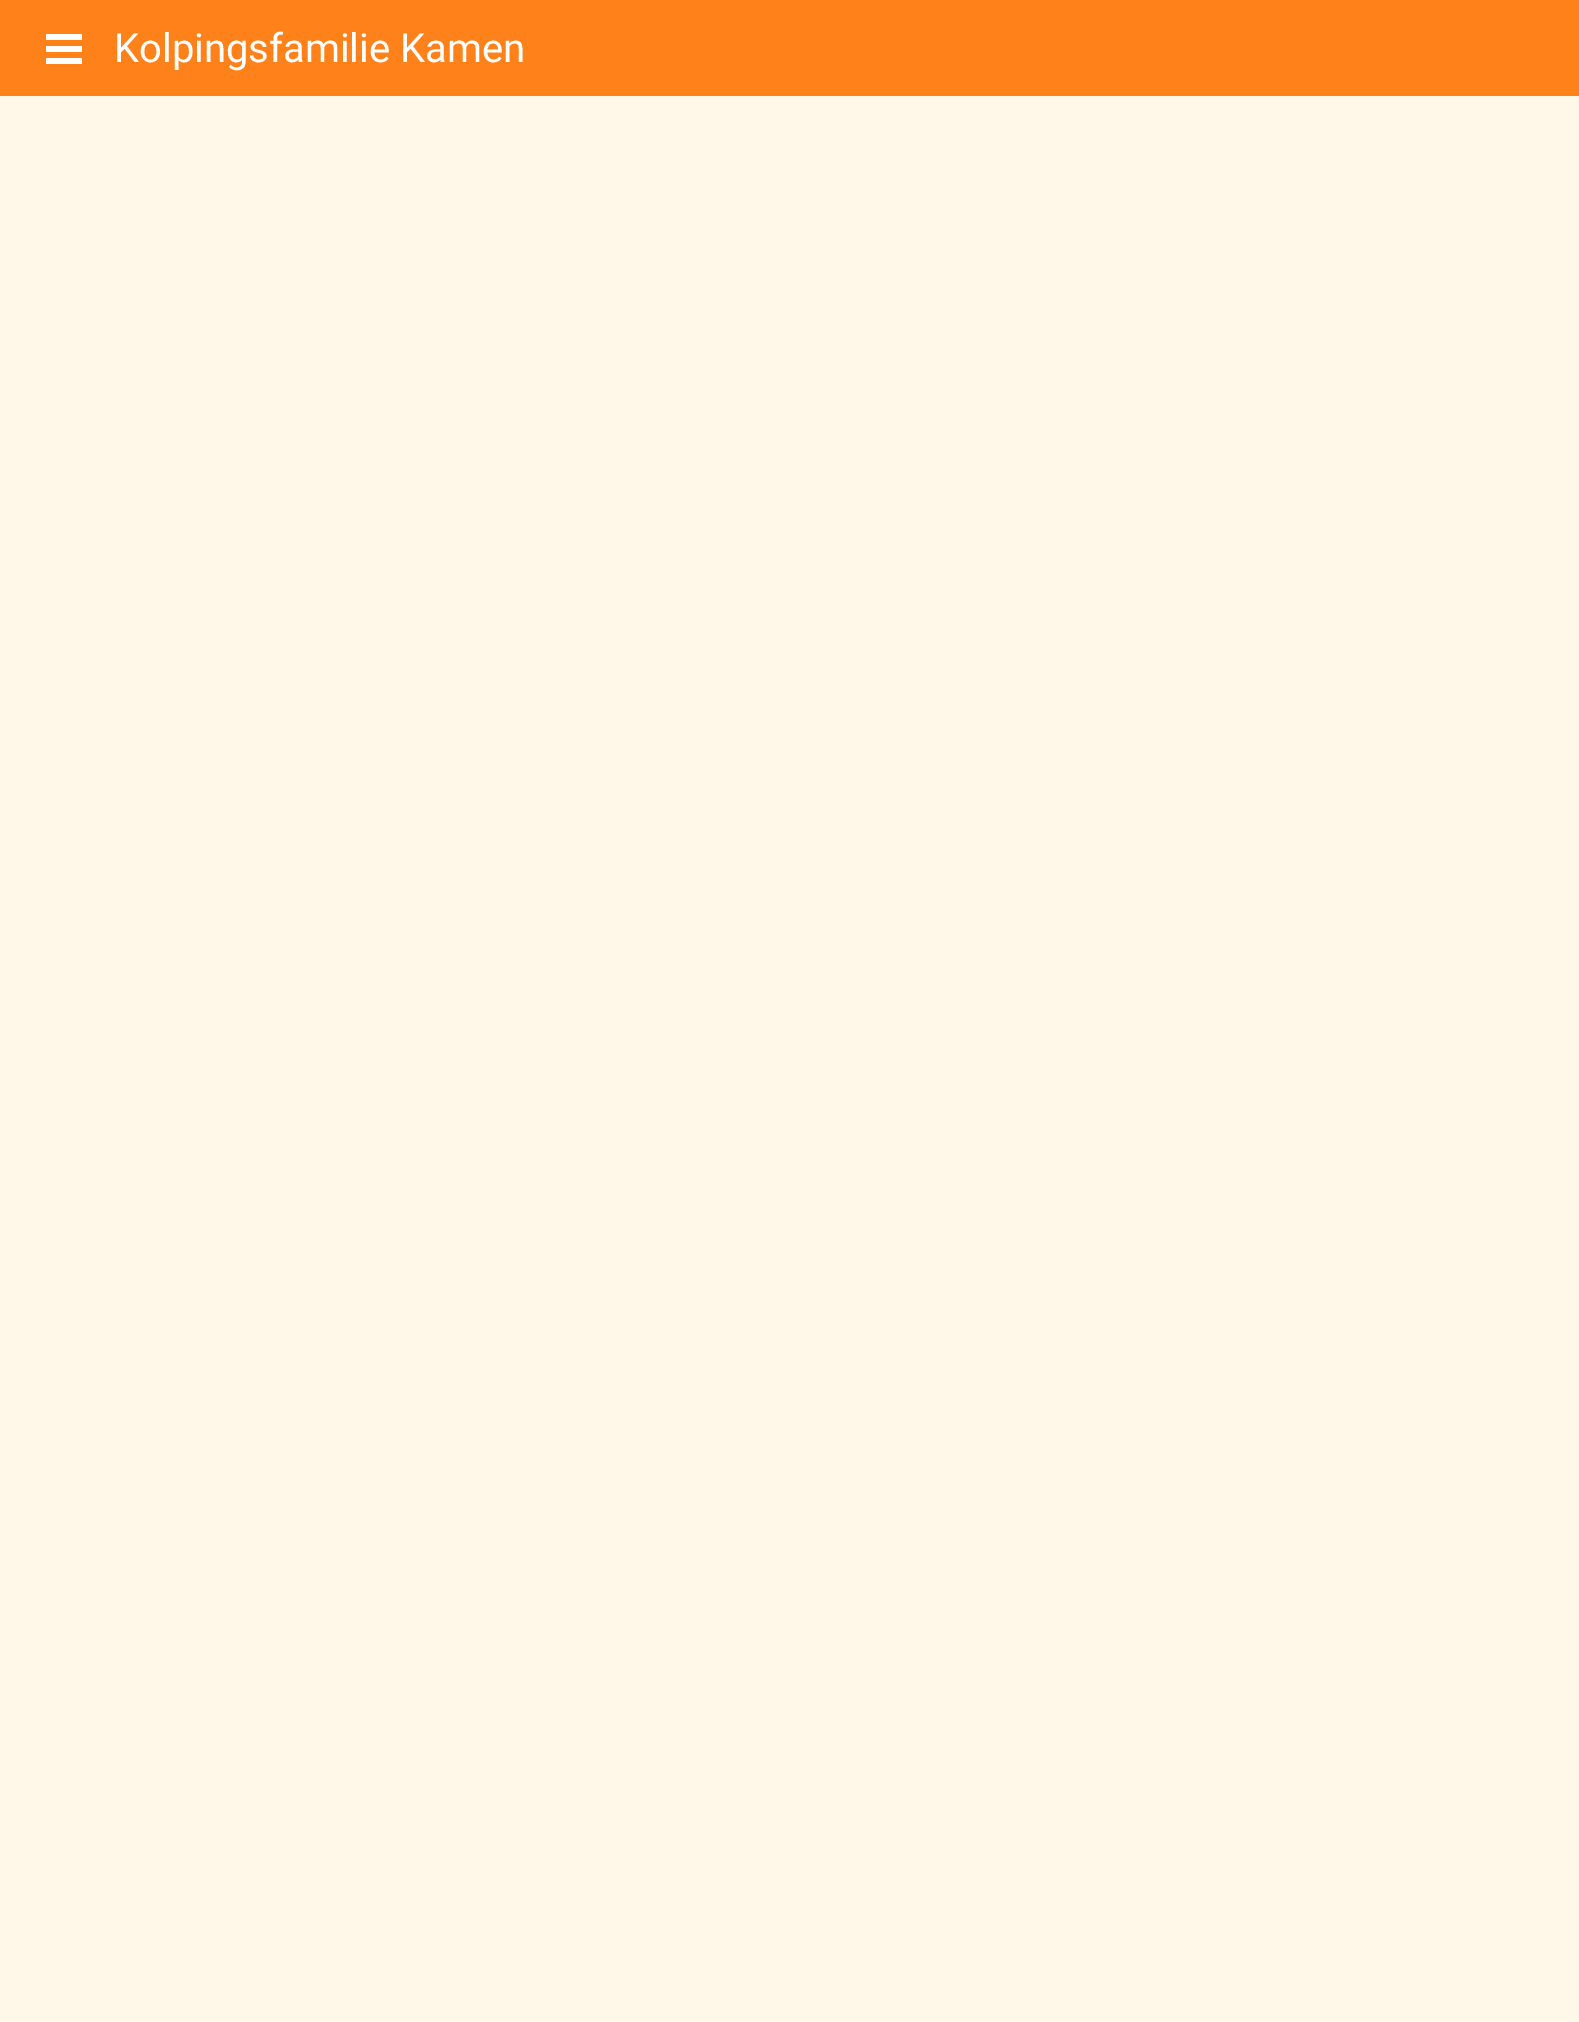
%!PS-Adobe-3.0
%%BoundingBox: 0 0 1579 2022
%%LanguageLevel: 3
%%Pages: 1
%%EndComments
%%BeginProlog
%%EndProlog
%%BeginSetup
<< /PageSize [1579 2022] >> setpagedevice
%%EndSetup
%%Page: 1 1
0 2022 translate 1 -1 scale
4 setmiterlimit
1 0.973 0.914 setrgbcolor
0 0 1579 2022 rectfill
1 0.506 0.102 setrgbcolor
0 0 1579 96 rectfill
1 setgray
46 34 36 6 rectfill
46 46 36 6 rectfill
46 58 36 6 rectfill
/Roboto-Regular [40 0 0 -40 0 0] selectfont
114 62 moveto (Kolpingsfamilie Kamen) show
showpage
%%EOF
